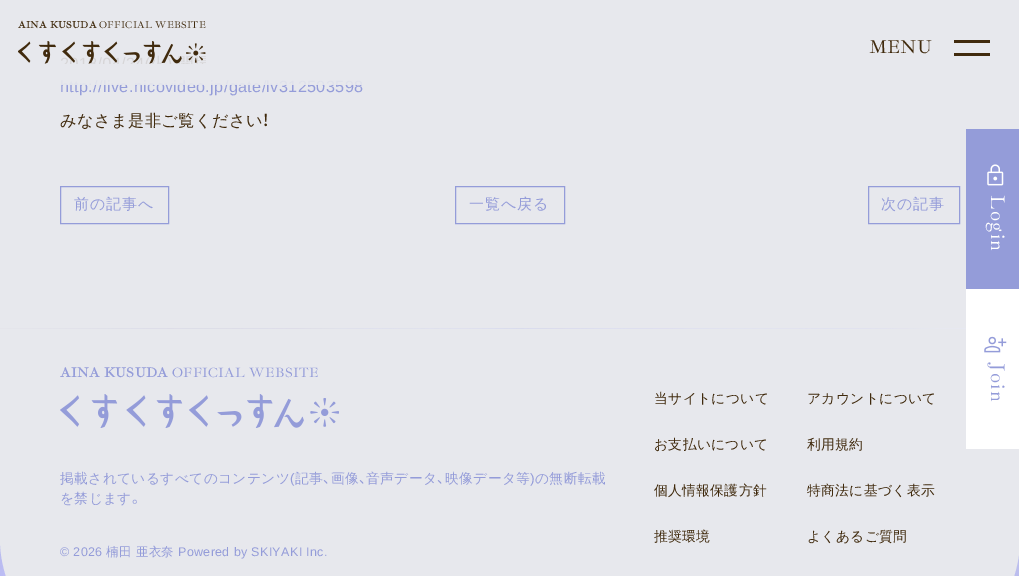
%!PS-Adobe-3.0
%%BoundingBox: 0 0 1019 576
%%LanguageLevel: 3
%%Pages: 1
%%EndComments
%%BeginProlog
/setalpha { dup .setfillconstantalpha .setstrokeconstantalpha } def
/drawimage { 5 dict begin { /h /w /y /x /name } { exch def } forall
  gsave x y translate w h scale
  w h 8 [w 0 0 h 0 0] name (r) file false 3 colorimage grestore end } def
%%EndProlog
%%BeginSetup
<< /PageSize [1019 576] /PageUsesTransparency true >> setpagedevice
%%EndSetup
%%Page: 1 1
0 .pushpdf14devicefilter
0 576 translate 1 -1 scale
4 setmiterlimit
0.906 0.91 0.929 setrgbcolor
0 0 1019 576 rectfill
(images/1.raw) 18 41 188 23 drawimage
0.251 0.165 0.051 setrgbcolor
954 40 36 3 rectfill
954 53 36 3 rectfill
0.58 0.612 0.851 setrgbcolor
966 129 53 160 rectfill
(images/2.raw) 987 164 17 22 drawimage
(images/4.raw) 0 328 1019 248 drawimage
0.906 0.91 0.929 setrgbcolor
newpath 0 329 moveto 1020 329 lineto 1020 538 lineto 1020 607 964 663 895 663 curveto 125 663 lineto 56 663 0 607 0 538 curveto closepath fill
1 setgray
966 289 53 160 rectfill
(images/3.raw) 984 336 23 17 drawimage
0.58 0.612 0.851 setrgbcolor
60.5 186.5 108 37 rectstroke
455.5 186.5 109 37 rectstroke
868.5 186.5 91 37 rectstroke
(images/5.raw) 60 394 279 34 drawimage
/IbarraRealNova-Bold [10 0 0 -10 0 0] selectfont
0.251 0.165 0.051 setrgbcolor
18 28 moveto 0.25 0 (AINA KUSUDA) ashow
/IbarraRealNova-Regular [10 0 0 -10 0 0] selectfont
99 28 moveto 0.25 0 (OFFICIAL WEBSITE) ashow
/IbarraRealNova-Regular [19 0 0 -19 0 0] selectfont
869 53 moveto (MENU) show
/IbarraRealNova-Regular [20 0 0 -20 0 0] selectfont
1 setgray
gsave 991 195 translate 90 rotate 0 0 moveto 1.5 0 (Login) ashow grestore
0.58 0.612 0.851 setrgbcolor
gsave 991 363 translate 90 rotate 0 0 moveto 1.5 0 (Join) ashow grestore
/LiberationSans-Regular [16.25 0 0 -16.25 0 0] selectfont
60 92 moveto 0.35 0 (http://live.nicovideo.jp/gate/lv312503598) ashow
0.9 setalpha
0.906 0.91 0.929 setrgbcolor
61 80 301 5 rectfill
/WenQuanYiZenHei-Medium [16.25 0 0 -16.25 0 0] selectfont
1 setalpha
0.251 0.165 0.051 setrgbcolor
60 126 moveto 0.35 0 (みなさま是非ご覧ください) ashow
/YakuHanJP-Regular [16.25 0 0 -16.25 0 0] selectfont
262 126 moveto 0.35 0 (！) ashow
/WenQuanYiZenHei-Medium [15 0 0 -15 0 0] selectfont
0.58 0.612 0.851 setrgbcolor
74 209 moveto 1 0 (前の記事へ) ashow
469 209 moveto 1 0 (一覧へ戻る) ashow
881 209 moveto 1 0 (次の記事) ashow
/IbarraRealNova-Bold [13.75 0 0 -13.75 0 0] selectfont
60 377 moveto 0.35 0 (AINA KUSUDA) ashow
/IbarraRealNova-Regular [13.75 0 0 -13.75 0 0] selectfont
172 377 moveto 0.35 0 (OFFICIAL WEBSITE) ashow
/WenQuanYiZenHei-Medium [13.75 0 0 -13.75 0 0] selectfont
60 483 moveto 0.35 0 (掲載されているすべてのコンテンツ) ashow
/LiberationSans-Regular [13.75 0 0 -13.75 0 0] selectfont
290 483 moveto 0.35 0 (\() ashow
/WenQuanYiZenHei-Medium [13.75 0 0 -13.75 0 0] selectfont
295 483 moveto 0.35 0 (記事) ashow
/YakuHanJP-Regular [13.75 0 0 -13.75 0 0] selectfont
323 483 moveto 0.35 0 (、) ashow
/WenQuanYiZenHei-Medium [13.75 0 0 -13.75 0 0] selectfont
331 483 moveto 0.35 0 (画像) ashow
/YakuHanJP-Regular [13.75 0 0 -13.75 0 0] selectfont
359 483 moveto 0.35 0 (、) ashow
/WenQuanYiZenHei-Medium [13.75 0 0 -13.75 0 0] selectfont
366 483 moveto 0.35 0 (音声データ) ashow
/YakuHanJP-Regular [13.75 0 0 -13.75 0 0] selectfont
437 483 moveto 0.35 0 (、) ashow
/WenQuanYiZenHei-Medium [13.75 0 0 -13.75 0 0] selectfont
445 483 moveto 0.35 0 (映像データ等) ashow
/LiberationSans-Regular [13.75 0 0 -13.75 0 0] selectfont
530 483 moveto 0.35 0 (\)) ashow
/WenQuanYiZenHei-Medium [13.75 0 0 -13.75 0 0] selectfont
535 483 moveto 0.35 0 (の無断転載) ashow
60 503 moveto 0.35 0 (を禁じます) ashow
/YakuHanJP-Regular [13.75 0 0 -13.75 0 0] selectfont
132 503 moveto 0.35 0 (。) ashow
/LiberationSans-Regular [12.5 0 0 -12.5 0 0] selectfont
60 556 moveto 0.35 0 (© 2026) ashow
/WenQuanYiZenHei-Medium [12.5 0 0 -12.5 0 0] selectfont
106 556 moveto 0.35 0 (楠田 亜衣奈) ashow
/LiberationSans-Regular [12.5 0 0 -12.5 0 0] selectfont
178 556 moveto 0.35 0 (Powered by SKIYAKI Inc.) ashow
/WenQuanYiZenHei-Medium [13.75 0 0 -13.75 0 0] selectfont
0.251 0.165 0.051 setrgbcolor
654 403 moveto 0.35 0 (当サイトについて) ashow
807 403 moveto 0.35 0 (アカウントについて) ashow
654 449 moveto 0.35 0 (お支払いについて) ashow
807 449 moveto 0.35 0 (利用規約) ashow
654 495 moveto 0.35 0 (個人情報保護方針) ashow
807 495 moveto 0.35 0 (特商法に基づく表示) ashow
654 541 moveto 0.35 0 (推奨環境) ashow
807 541 moveto 0.35 0 (よくあるご質問) ashow
.poppdf14devicefilter showpage
%%EOF
